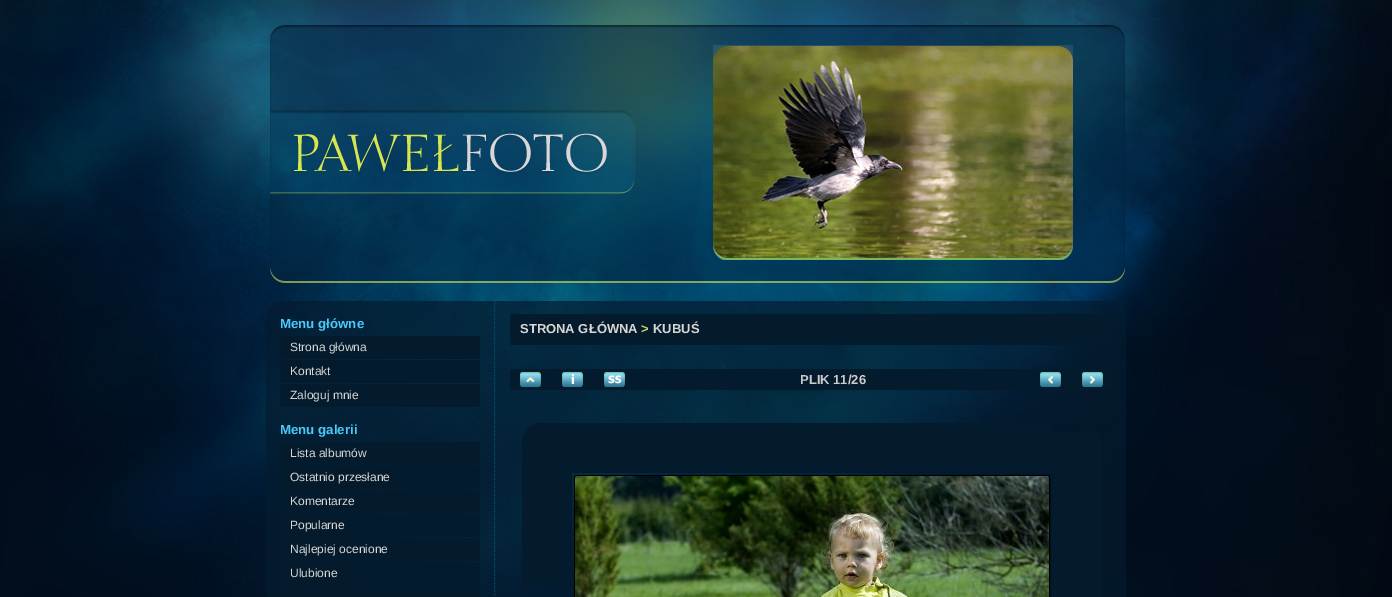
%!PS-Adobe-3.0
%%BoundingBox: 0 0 1392 597
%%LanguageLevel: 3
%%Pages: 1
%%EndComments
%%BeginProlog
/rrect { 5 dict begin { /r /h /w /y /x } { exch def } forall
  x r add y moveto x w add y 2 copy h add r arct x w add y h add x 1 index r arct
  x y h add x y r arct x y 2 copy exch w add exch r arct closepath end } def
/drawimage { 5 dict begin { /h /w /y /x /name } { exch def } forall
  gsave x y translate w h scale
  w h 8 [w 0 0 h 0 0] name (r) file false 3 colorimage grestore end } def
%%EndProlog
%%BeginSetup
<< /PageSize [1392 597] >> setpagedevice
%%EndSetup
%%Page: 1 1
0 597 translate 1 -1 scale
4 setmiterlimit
1 setgray
0 0 1392 597 rectfill
(images/1.raw) 0 0 1392 597 drawimage
(images/2.raw) 270 25 855 258 drawimage
(images/3.raw) 294 133 313 41 drawimage
(images/4.raw) 713 45 360 215 drawimage
(images/5.raw) 266 301 860 296 drawimage
0.012 0.31 0.443 setrgbcolor
[1 1] 0 setdash
newpath 494.5 301 moveto 494.5 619 lineto stroke
0.016 0.106 0.18 setrgbcolor
280 336 200 23 2 rrect fill
280 360 200 23 2 rrect fill
280 384 200 23 2 rrect fill
280 442 200 23 2 rrect fill
280 466 200 23 2 rrect fill
280 490 200 23 2 rrect fill
280 514 200 23 2 rrect fill
280 538 200 23 2 rrect fill
280 562 200 23 2 rrect fill
280 586 200 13 2 rrect fill
510 314 603 31 2 rrect fill
510 369 603 21 2 rrect fill
(images/6.raw) 520 372 21 15 drawimage
(images/7.raw) 562 372 21 15 drawimage
(images/8.raw) 604 372 21 15 drawimage
(images/9.raw) 1040 372 21 15 drawimage
(images/10.raw) 1082 372 21 15 drawimage
(images/11.raw) 522 423 50 50 drawimage
572 423 480 50 rectfill
(images/12.raw) 1052 432 50 41 drawimage
522 473 50 114 rectfill
0 setgray
[] 0 setdash
574.5 475.5 475 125 2.5 rrect stroke
(images/13.raw) 575 476 474 121 drawimage
0.016 0.106 0.18 setrgbcolor
1052 473 50 124 rectfill
/LiberationSans-Bold [13.25 0 0 -13.25 0 0] selectfont
0.282 0.796 0.976 setrgbcolor
280 328 moveto (Menu główne) show
/LiberationSans-Regular [12 0 0 -12 0 0] selectfont
0.847 0.843 0.827 setrgbcolor
290 351 moveto (Strona główna) show
290 375 moveto (Kontakt) show
290 399 moveto (Zaloguj mnie) show
/LiberationSans-Bold [13.25 0 0 -13.25 0 0] selectfont
0.282 0.796 0.976 setrgbcolor
280 434 moveto (Menu galerii) show
/LiberationSans-Regular [12 0 0 -12 0 0] selectfont
0.847 0.843 0.827 setrgbcolor
290 457 moveto (Lista albumów) show
290 481 moveto (Ostatnio przesłane) show
290 505 moveto (Komentarze) show
290 529 moveto (Popularne) show
290 553 moveto (Najlepiej ocenione) show
290 577 moveto (Ulubione) show
/LiberationSans-Bold [13 0 0 -13 0 0] selectfont
520 333 moveto (STRONA GŁÓWNA) show
0.808 0.867 0.369 setrgbcolor
641 333 moveto (>) show
0.847 0.843 0.827 setrgbcolor
653 333 moveto (KUBUŚ) show
0.8 setgray
800 384 moveto (PLIK 11/26) show
showpage
%%EOF
